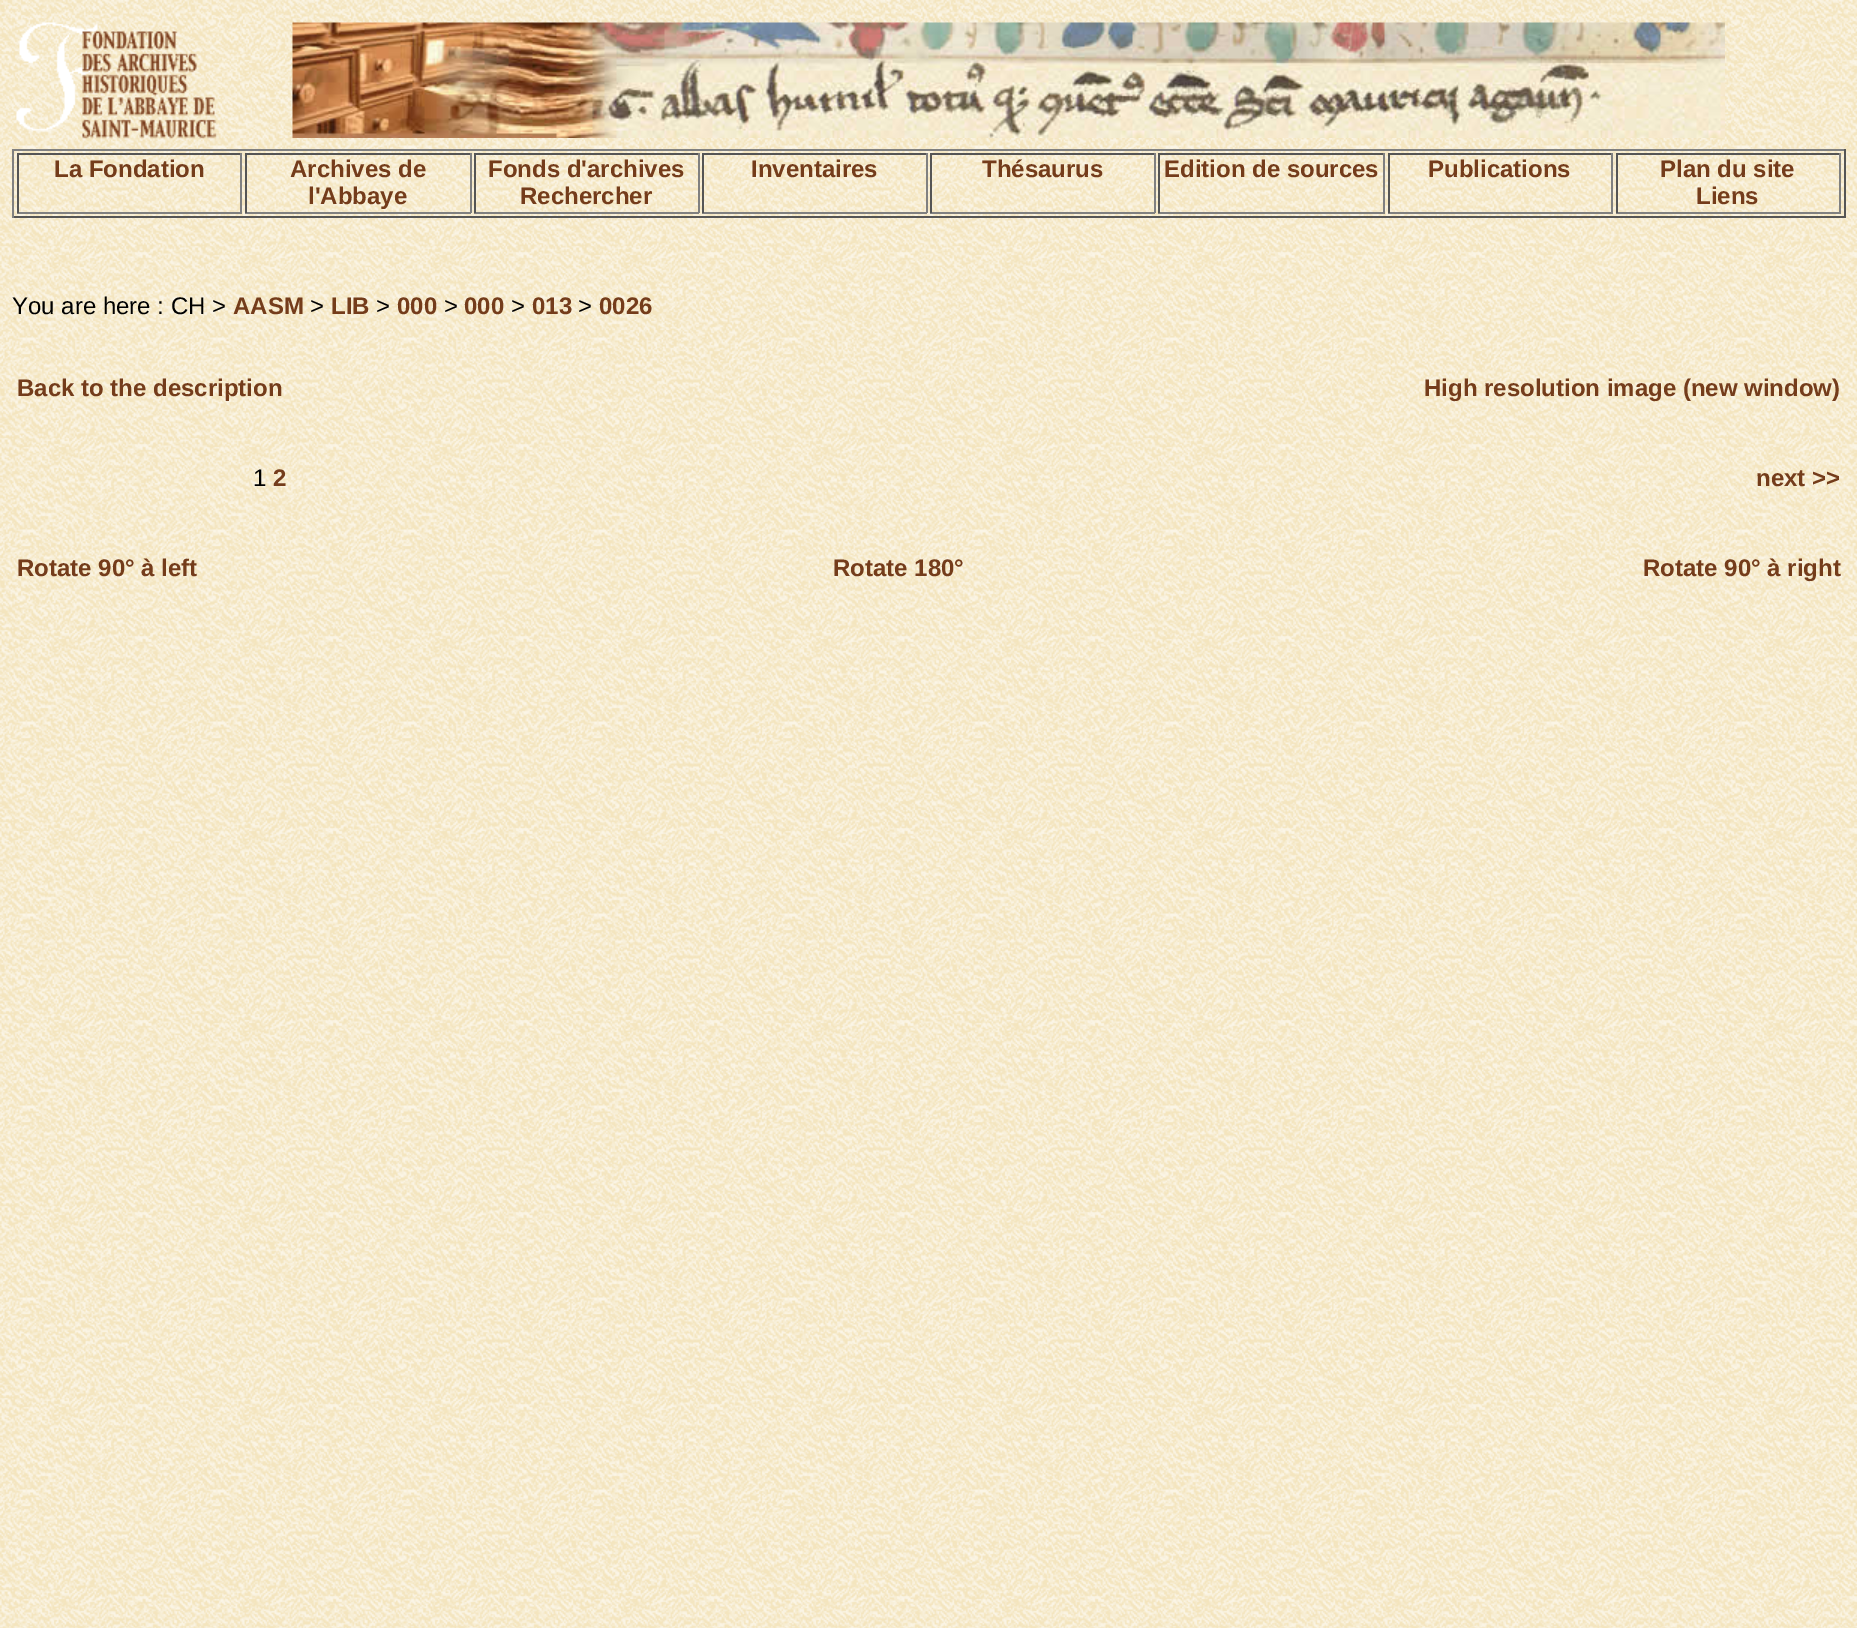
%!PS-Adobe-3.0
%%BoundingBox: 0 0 1857 1628
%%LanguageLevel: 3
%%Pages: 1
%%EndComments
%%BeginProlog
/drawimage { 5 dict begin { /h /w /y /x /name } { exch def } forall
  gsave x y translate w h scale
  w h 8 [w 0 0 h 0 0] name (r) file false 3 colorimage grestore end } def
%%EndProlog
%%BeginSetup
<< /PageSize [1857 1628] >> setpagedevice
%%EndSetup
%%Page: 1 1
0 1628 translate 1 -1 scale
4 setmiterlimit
1 setgray
0 0 1857 1628 rectfill
(images/1.raw) 0 0 1857 1628 drawimage
(images/2.raw) 16 22 201 117 drawimage
(images/3.raw) 292 22 1433 116 drawimage
0.502 setgray
12 149 1833 2 rectfill
0.333 setgray
1844 149 2 69 rectfill
12 216 1833 2 rectfill
0.502 setgray
12 149 2 69 rectfill
0.333 setgray
17 153 225 2 rectfill
0.502 setgray
240 153 2 60 rectfill
17 212 225 2 rectfill
0.333 setgray
17 153 2 60 rectfill
245 153 226 2 rectfill
0.502 setgray
470 153 2 60 rectfill
245 212 226 2 rectfill
0.333 setgray
245 153 2 60 rectfill
474 153 225 2 rectfill
0.502 setgray
698 153 2 60 rectfill
474 212 225 2 rectfill
0.333 setgray
474 153 2 60 rectfill
702 153 225 2 rectfill
0.502 setgray
926 153 2 60 rectfill
702 212 225 2 rectfill
0.333 setgray
702 153 2 60 rectfill
930 153 225 2 rectfill
0.502 setgray
1154 153 2 60 rectfill
930 212 225 2 rectfill
0.333 setgray
930 153 2 60 rectfill
1158 153 227 2 rectfill
0.502 setgray
1383 153 2 60 rectfill
1158 212 227 2 rectfill
0.333 setgray
1158 153 2 60 rectfill
1388 153 225 2 rectfill
0.502 setgray
1611 153 2 60 rectfill
1388 212 225 2 rectfill
0.333 setgray
1388 153 2 60 rectfill
1616 153 225 2 rectfill
0.502 setgray
1839 153 2 60 rectfill
1616 212 225 2 rectfill
0.333 setgray
1616 153 2 60 rectfill
/LiberationSans-Bold [24 0 0 -24 0 0] selectfont
0.455 0.235 0.106 setrgbcolor
54 177 moveto (La Fondation) show
290 177 moveto (Archives de) show
308 204 moveto (l'Abbaye) show
488 177 moveto (Fonds d'archives) show
520 204 moveto (Rechercher) show
751 177 moveto (Inventaires) show
982 177 moveto (Thésaurus) show
1164 177 moveto (Edition de sources) show
1428 177 moveto (Publications) show
1660 177 moveto (Plan du site) show
1696 204 moveto (Liens) show
/LiberationSans-Regular [24 0 0 -24 0 0] selectfont
0 setgray
12 314 moveto (You are here : CH >) show
/LiberationSans-Bold [24 0 0 -24 0 0] selectfont
0.455 0.235 0.106 setrgbcolor
233 314 moveto (AASM) show
/LiberationSans-Regular [24 0 0 -24 0 0] selectfont
0 setgray
310 314 moveto (>) show
/LiberationSans-Bold [24 0 0 -24 0 0] selectfont
0.455 0.235 0.106 setrgbcolor
331 314 moveto (LIB) show
/LiberationSans-Regular [24 0 0 -24 0 0] selectfont
0 setgray
376 314 moveto (>) show
/LiberationSans-Bold [24 0 0 -24 0 0] selectfont
0.455 0.235 0.106 setrgbcolor
397 314 moveto (000) show
/LiberationSans-Regular [24 0 0 -24 0 0] selectfont
0 setgray
444 314 moveto (>) show
/LiberationSans-Bold [24 0 0 -24 0 0] selectfont
0.455 0.235 0.106 setrgbcolor
464 314 moveto (000) show
/LiberationSans-Regular [24 0 0 -24 0 0] selectfont
0 setgray
511 314 moveto (>) show
/LiberationSans-Bold [24 0 0 -24 0 0] selectfont
0.455 0.235 0.106 setrgbcolor
532 314 moveto (013) show
/LiberationSans-Regular [24 0 0 -24 0 0] selectfont
0 setgray
578 314 moveto (>) show
/LiberationSans-Bold [24 0 0 -24 0 0] selectfont
0.455 0.235 0.106 setrgbcolor
599 314 moveto (0026) show
17 396 moveto (Back to the description) show
1424 396 moveto (High resolution image \(new window\)) show
/LiberationSans-Regular [24 0 0 -24 0 0] selectfont
0 setgray
253 486 moveto (1) show
/LiberationSans-Bold [24 0 0 -24 0 0] selectfont
0.455 0.235 0.106 setrgbcolor
273 486 moveto (2) show
1756 486 moveto (next >>) show
17 576 moveto (Rotate 90° à left) show
833 576 moveto (Rotate 180°) show
1643 576 moveto (Rotate 90° à right) show
showpage
%%EOF
